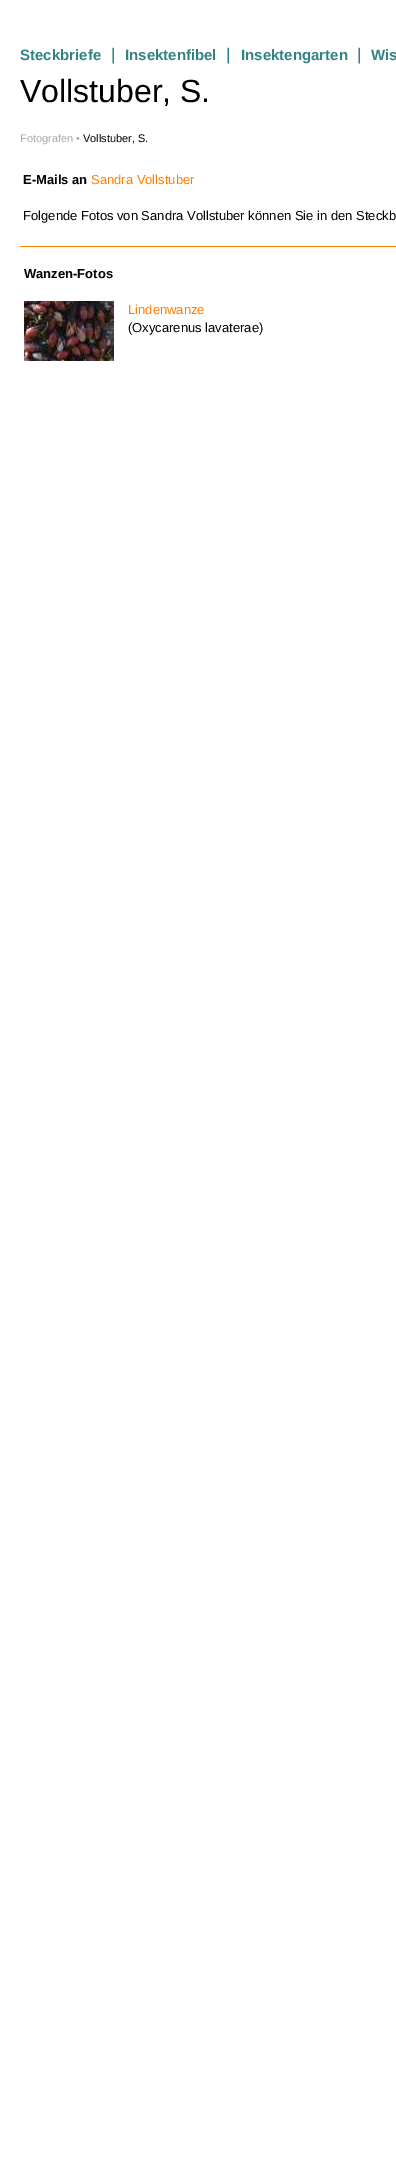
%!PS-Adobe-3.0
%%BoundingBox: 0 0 396 2179
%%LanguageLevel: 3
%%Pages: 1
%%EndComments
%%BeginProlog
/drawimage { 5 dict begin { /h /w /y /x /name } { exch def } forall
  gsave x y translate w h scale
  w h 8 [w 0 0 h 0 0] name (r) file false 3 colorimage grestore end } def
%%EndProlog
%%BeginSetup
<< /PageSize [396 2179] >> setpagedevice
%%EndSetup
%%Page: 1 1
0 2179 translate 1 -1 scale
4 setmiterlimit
1 setgray
0 0 396 2179 rectfill
1 0.498 0 setrgbcolor
20 246 376 1 rectfill
(images/1.raw) 24 301 90 60 drawimage
/LiberationSans-Bold [15 0 0 -15 0 0] selectfont
0.196 0.51 0.522 setrgbcolor
20 60 moveto (Steckbriefe) show
/LiberationSans-Regular [17 0 0 -17 0 0] selectfont
111 60 moveto (|) show
/LiberationSans-Bold [15 0 0 -15 0 0] selectfont
125 60 moveto (Insektenfibel) show
/LiberationSans-Regular [17 0 0 -17 0 0] selectfont
226 60 moveto (|) show
/LiberationSans-Bold [15 0 0 -15 0 0] selectfont
241 60 moveto (Insektengarten) show
/LiberationSans-Regular [17 0 0 -17 0 0] selectfont
357 60 moveto (|) show
/LiberationSans-Bold [15 0 0 -15 0 0] selectfont
371 60 moveto (Wis) show
/LiberationSans-Regular [32 0 0 -32 0 0] selectfont
0 setgray
20 102 moveto (Vollstuber, S.) show
/LiberationSans-Regular [11 0 0 -11 0 0] selectfont
0.667 setgray
20 142 moveto (Fotografen •) show
0 setgray
83 142 moveto (Vollstuber, S.) show
/LiberationSans-Bold [13 0 0 -13 0 0] selectfont
23 184 moveto (E-Mails an) show
/LiberationSans-Regular [13 0 0 -13 0 0] selectfont
1 0.498 0 setrgbcolor
91 184 moveto (Sandra Vollstuber) show
0 setgray
23 220 moveto (Folgende Fotos von Sandra Vollstuber können Sie in den Steckb) show
/LiberationSans-Bold [13 0 0 -13 0 0] selectfont
24 278 moveto (Wanzen-Fotos) show
/LiberationSans-Regular [13 0 0 -13 0 0] selectfont
1 0.498 0 setrgbcolor
128 314 moveto (Lindenwanze) show
0 setgray
128 332 moveto (\(Oxycarenus lavaterae\)) show
showpage
%%EOF
